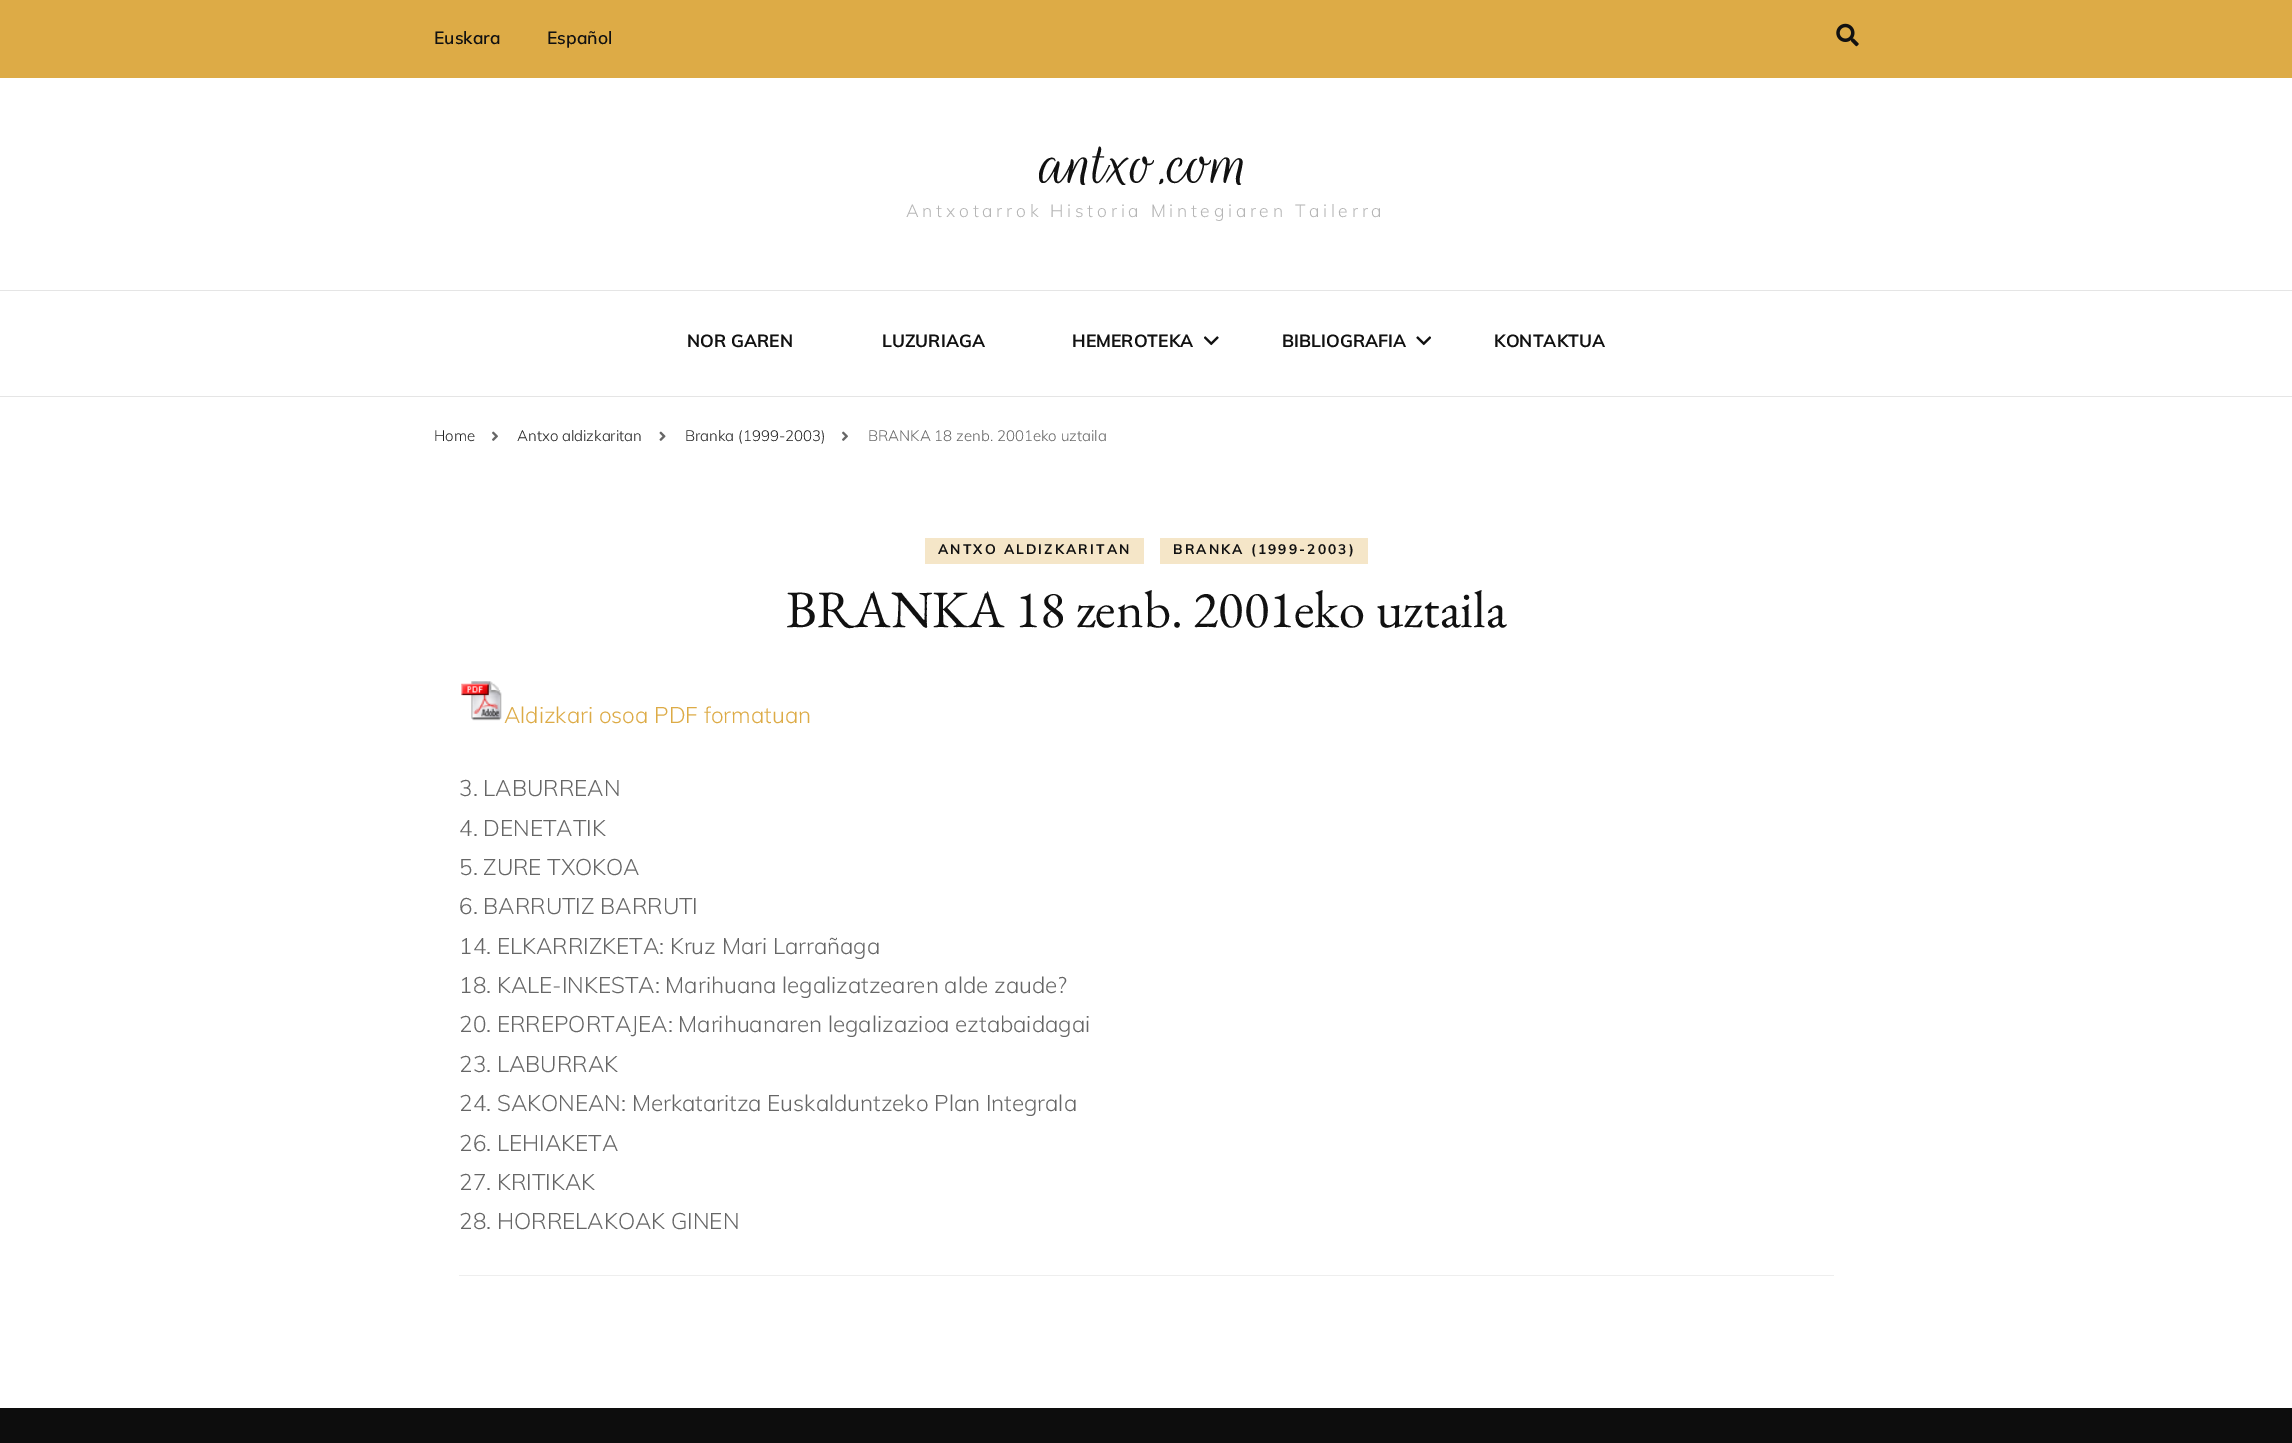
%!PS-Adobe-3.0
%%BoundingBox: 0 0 2292 1443
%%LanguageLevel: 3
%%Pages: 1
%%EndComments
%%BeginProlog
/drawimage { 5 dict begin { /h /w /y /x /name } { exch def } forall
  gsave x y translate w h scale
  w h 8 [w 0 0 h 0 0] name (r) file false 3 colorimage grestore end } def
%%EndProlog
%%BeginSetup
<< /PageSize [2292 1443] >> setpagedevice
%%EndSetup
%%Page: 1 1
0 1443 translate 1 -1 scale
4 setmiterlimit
1 setgray
0 0 2292 1443 rectfill
0.867 0.671 0.275 setrgbcolor
0 0 2292 78 rectfill
(images/1.raw) 1836 23 23 24 drawimage
0.898 setgray
0 290 2292 1 rectfill
0 396 2292 1 rectfill
(images/2.raw) 1204 336 15 10 drawimage
(images/3.raw) 1416 336 15 10 drawimage
(images/4.raw) 492 431 6 10 drawimage
(images/5.raw) 659 431 7 10 drawimage
(images/4.raw) 842 431 6 10 drawimage
0.961 0.902 0.784 setrgbcolor
925 538 219 26 rectfill
1160 538 208 26 rectfill
(images/6.raw) 461 681 41 40 drawimage
0.933 setgray
459 1275 1375 1 rectfill
0.051 setgray
0 1408 2292 35 rectfill
/Muli-SemiBold [17.5 0 0 -17.5 0 0] selectfont
0.067 setgray
434 44 moveto (Euskara) show
547 44 moveto (Español) show
/RougeScript-Regular [75 0 0 -75 0 0] selectfont
1042 183 moveto (antxo.com) show
/Muli-Light [17.5 0 0 -17.5 0 0] selectfont
0.71 setgray
906 217 moveto 3.75 0 (Antxotarrok Historia Mintegiaren Tailerra) ashow
/Muli-Bold [17.5 0 0 -17.5 0 0] selectfont
0.067 setgray
687 347 moveto (NOR GAREN) show
882 347 moveto (LUZURIAGA) show
1072 347 moveto (HEMEROTEKA) show
1282 347 moveto (BIBLIOGRAFIA) show
1494 347 moveto (KONTAKTUA) show
/Muli-Light [15 0 0 -15 0 0] selectfont
0.133 setgray
434 441 moveto (Home) show
517 441 moveto (Antxo aldizkaritan) show
685 441 moveto (Branka \(1999-2003\)) show
0.4 setgray
868 441 moveto (BRANKA 18 zenb. 2001eko uztaila) show
/Muli-Bold [13.75 0 0 -13.75 0 0] selectfont
0.067 setgray
938 554 moveto 2.1 0 (ANTXO ALDIZKARITAN) ashow
1173 554 moveto 2.1 0 (BRANKA \(1999-2003\)) ashow
/EBGaramond-Regular [52.5 0 0 -52.5 0 0] selectfont
786 627 moveto (BRANKA 18 zenb. 2001eko uztaila) show
/Muli-Light [22.5 0 0 -22.5 0 0] selectfont
0.867 0.671 0.275 setrgbcolor
504 723 moveto (Aldizkari osoa PDF formatuan) show
0.4 setgray
459 796 moveto (3. LABURREAN) show
459 836 moveto (4. DENETATIK) show
459 875 moveto (5. ZURE TXOKOA) show
459 914 moveto (6. BARRUTIZ BARRUTI) show
459 954 moveto (14. ELKARRIZKETA: Kruz Mari Larrañaga) show
459 993 moveto (18. KALE-INKESTA: Marihuana legalizatzearen alde zaude?) show
459 1032 moveto (20. ERREPORTAJEA: Marihuanaren legalizazioa eztabaidagai) show
459 1072 moveto (23. LABURRAK) show
459 1111 moveto (24. SAKONEAN: Merkataritza Euskalduntzeko Plan Integrala) show
459 1151 moveto (26. LEHIAKETA) show
459 1190 moveto (27. KRITIKAK) show
459 1229 moveto (28. HORRELAKOAK GINEN) show
showpage
%%EOF
